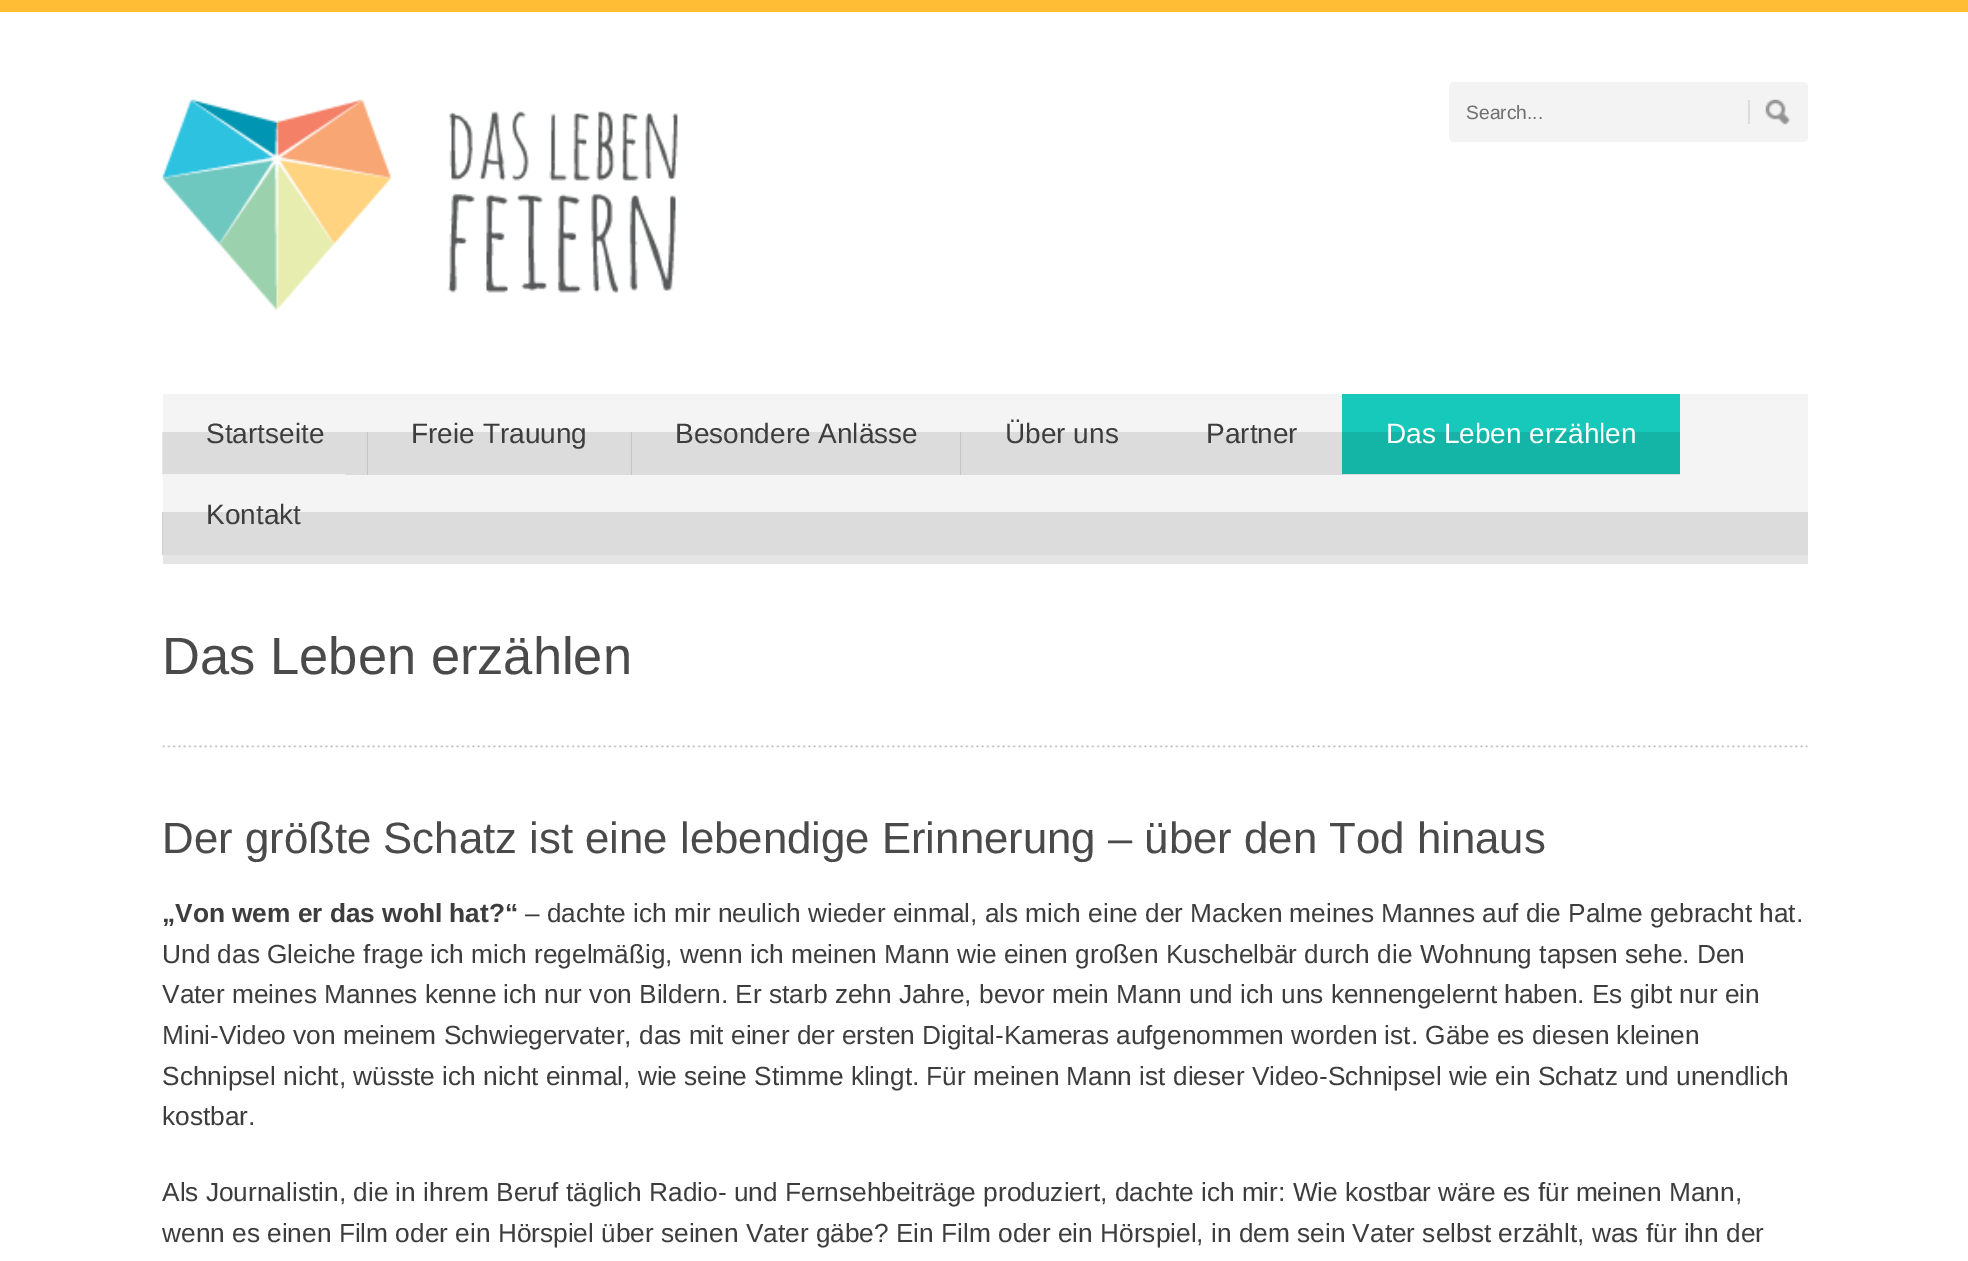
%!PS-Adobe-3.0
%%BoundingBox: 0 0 1968 1261
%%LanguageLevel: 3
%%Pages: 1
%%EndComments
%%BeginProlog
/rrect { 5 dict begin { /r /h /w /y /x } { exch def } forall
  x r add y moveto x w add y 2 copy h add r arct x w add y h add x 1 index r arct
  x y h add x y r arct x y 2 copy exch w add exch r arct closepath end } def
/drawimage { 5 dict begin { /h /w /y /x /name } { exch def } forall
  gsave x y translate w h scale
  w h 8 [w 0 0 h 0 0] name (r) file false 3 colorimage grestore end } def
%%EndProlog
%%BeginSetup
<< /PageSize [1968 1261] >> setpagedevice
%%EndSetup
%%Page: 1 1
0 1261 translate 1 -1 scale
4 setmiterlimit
1 setgray
0 0 1968 1261 rectfill
1 0.737 0.208 setrgbcolor
0 0 1968 12 rectfill
(images/1.raw) 162 99 516 211 drawimage
0.953 setgray
1449 82 359 60 5 rrect fill
(images/2.raw) 1765 99 26 26 drawimage
0.859 setgray
1748 100 2 24 rectfill
0.957 setgray
163 394 1645 118 rectfill
0.863 setgray
1343 474 337 1 rectfill
961 432 381 43 rectfill
632 432 328 43 rectfill
0.776 setgray
960 432 1 43 rectfill
0.863 setgray
368 432 263 43 rectfill
0.776 setgray
631 432 1 43 rectfill
0.863 setgray
163 432 204 43 rectfill
0.776 setgray
367 432 1 43 rectfill
0.863 setgray
163 512 1645 43 rectfill
0.776 setgray
1342 474 1 1 rectfill
0.086 0.788 0.729 setrgbcolor
1342 394 338 38 rectfill
0.078 0.71 0.655 setrgbcolor
1342 432 338 42 rectfill
0.957 setgray
163 474 182 1 rectfill
(images/3.raw) 162 745 1646 3 drawimage
0.898 setgray
163 555 1645 9 rectfill
0.902 setgray
162 432 1 43 rectfill
0.812 setgray
162 512 1 43 rectfill
/LiberationSans-Regular [19.25 0 0 -19.25 0 0] selectfont
0.439 setgray
1466 119 moveto (Search...) show
/LiberationSans-Regular [28 0 0 -28 0 0] selectfont
0.239 setgray
206 443 moveto (Startseite) show
411 443 moveto (Freie Trauung) show
675 443 moveto (Besondere Anlässe) show
1005 443 moveto (Über uns) show
1206 443 moveto (Partner) show
1 setgray
1386 443 moveto (Das Leben erzählen) show
0.239 setgray
206 524 moveto (Kontakt) show
/LiberationSans-Regular [52.5 0 0 -52.5 0 0] selectfont
0.29 setgray
162 674 moveto (Das Leben erzählen) show
/LiberationSans-Regular [43.75 0 0 -43.75 0 0] selectfont
162 853 moveto (Der größte Schatz ist eine lebendige Erinnerung – über den Tod hinaus) show
/LiberationSans-Bold [26.25 0 0 -26.25 0 0] selectfont
0.239 setgray
162 922 moveto („Von wem er das wohl hat?“) show
/LiberationSans-Regular [26.25 0 0 -26.25 0 0] selectfont
525 922 moveto (– dachte ich mir neulich wieder einmal, als mich eine der Macken meines Mannes auf die Palme gebracht hat.) show
162 963 moveto (Und das Gleiche frage ich mich regelmäßig, wenn ich meinen Mann wie einen großen Kuschelbär durch die Wohnung tapsen sehe. Den) show
162 1003 moveto (Vater meines Mannes kenne ich nur von Bildern. Er starb zehn Jahre, bevor mein Mann und ich uns kennengelernt haben. Es gibt nur ein) show
162 1044 moveto (Mini-Video von meinem Schwiegervater, das mit einer der ersten Digital-Kameras aufgenommen worden ist. Gäbe es diesen kleinen) show
162 1085 moveto (Schnipsel nicht, wüsste ich nicht einmal, wie seine Stimme klingt. Für meinen Mann ist dieser Video-Schnipsel wie ein Schatz und unendlich) show
162 1125 moveto (kostbar.) show
162 1201 moveto (Als Journalistin, die in ihrem Beruf täglich Radio- und Fernsehbeiträge produziert, dachte ich mir: Wie kostbar wäre es für meinen Mann,) show
162 1242 moveto (wenn es einen Film oder ein Hörspiel über seinen Vater gäbe? Ein Film oder ein Hörspiel, in dem sein Vater selbst erzählt, was für ihn der) show
showpage
%%EOF
